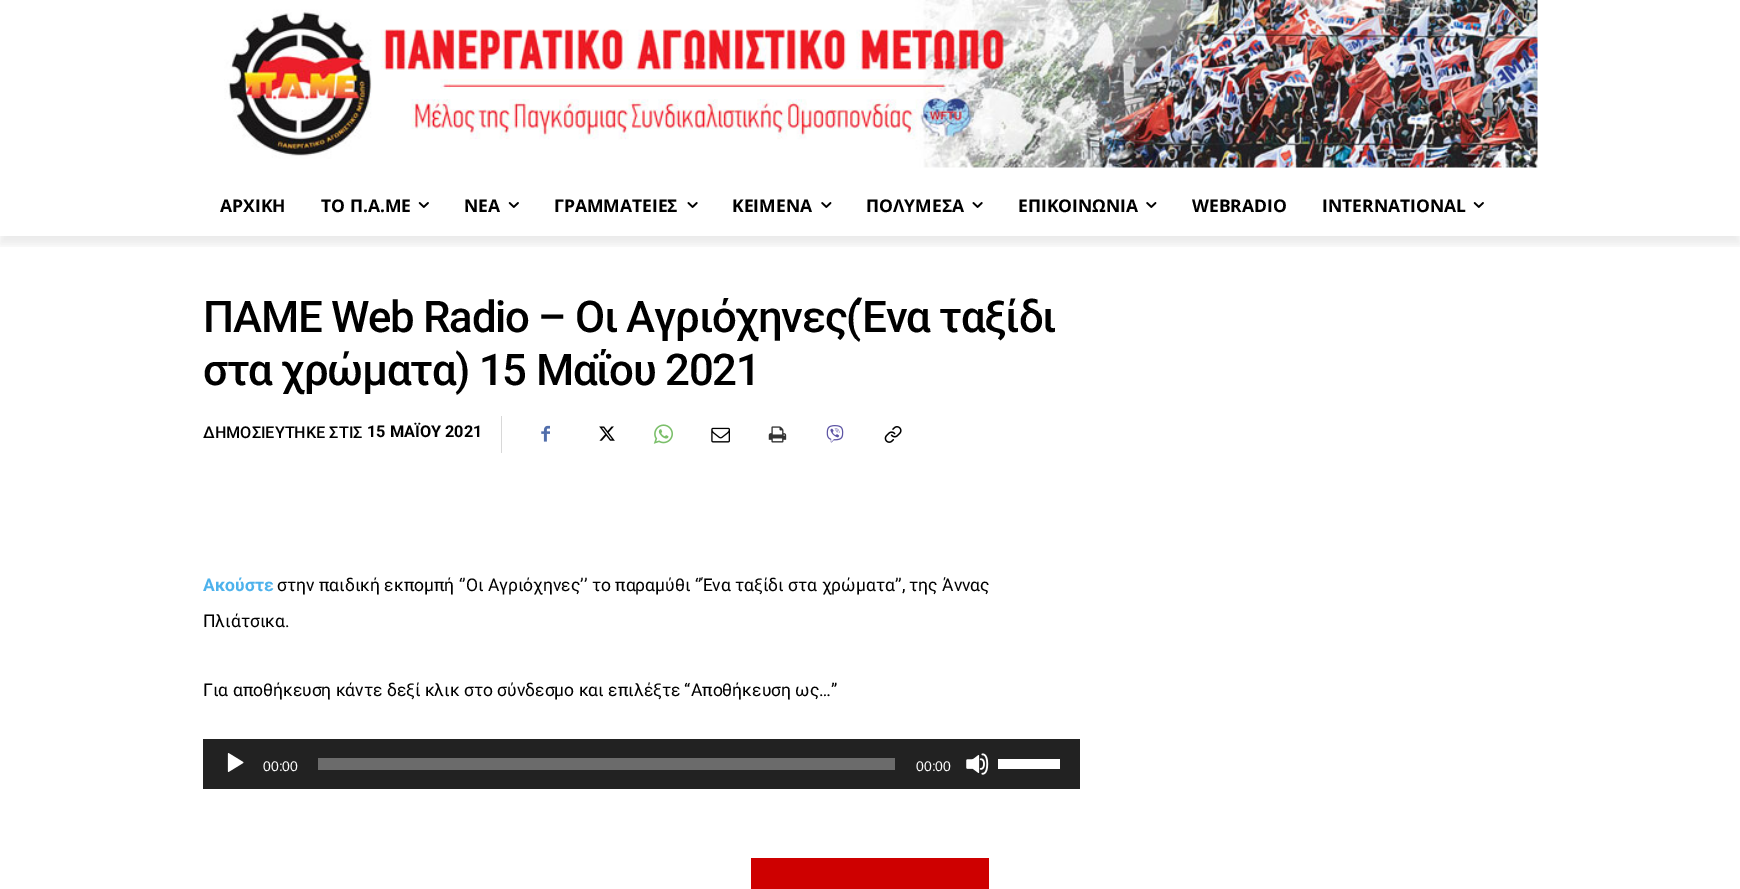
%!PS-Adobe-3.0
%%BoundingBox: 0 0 1740 889
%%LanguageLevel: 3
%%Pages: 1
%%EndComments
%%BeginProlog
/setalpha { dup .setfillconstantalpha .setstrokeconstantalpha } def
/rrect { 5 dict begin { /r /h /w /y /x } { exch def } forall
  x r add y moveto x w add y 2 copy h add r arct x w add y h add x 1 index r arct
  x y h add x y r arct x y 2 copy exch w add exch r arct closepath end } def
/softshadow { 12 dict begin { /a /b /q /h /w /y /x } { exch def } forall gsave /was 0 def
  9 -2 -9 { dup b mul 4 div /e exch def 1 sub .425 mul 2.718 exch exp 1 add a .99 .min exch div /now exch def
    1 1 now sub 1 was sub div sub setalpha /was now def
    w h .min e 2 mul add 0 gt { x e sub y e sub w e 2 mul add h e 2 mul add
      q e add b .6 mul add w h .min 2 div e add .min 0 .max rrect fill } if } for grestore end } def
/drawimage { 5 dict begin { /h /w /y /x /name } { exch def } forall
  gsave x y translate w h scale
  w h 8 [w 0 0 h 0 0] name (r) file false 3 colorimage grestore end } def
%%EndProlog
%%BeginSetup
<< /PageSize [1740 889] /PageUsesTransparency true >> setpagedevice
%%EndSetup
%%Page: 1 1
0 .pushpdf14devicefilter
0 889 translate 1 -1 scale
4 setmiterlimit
1 setgray
0 0 1740 889 rectfill
(images/1.raw) 224 0 1314 168 drawimage
gsave
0 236 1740 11 rectclip
0 setgray
0 8 1740 236 0 5 0.08 softshadow
grestore
(images/2.raw) 418 202 11 6 drawimage
(images/2.raw) 508 202 11 6 drawimage
(images/3.raw) 687 202 11 6 drawimage
(images/4.raw) 821 202 11 6 drawimage
(images/3.raw) 972 202 11 6 drawimage
(images/4.raw) 1146 202 11 6 drawimage
(images/2.raw) 1473 202 11 6 drawimage
0.847 setgray
501 416 1 37 rectfill
(images/5.raw) 541 425 9 17 drawimage
(images/6.raw) 599 426 16 15 drawimage
(images/7.raw) 653 424 20 20 drawimage
(images/8.raw) 711 427 19 16 drawimage
(images/9.raw) 768 426 19 17 drawimage
(images/10.raw) 826 425 18 18 drawimage
(images/11.raw) 884 426 18 17 drawimage
0.133 setgray
203 739 877 50 rectfill
(images/12.raw) 227 753 17 19 drawimage
0.42 setgray
318 758 577 12 rectfill
(images/13.raw) 966 753 23 22 drawimage
1 setgray
998 759 62 10 rectfill
0.808 0 0 setrgbcolor
751 858 238 31 rectfill
/OpenSans-Bold [17.5 0 0 -17.5 0 0] selectfont
0 setgray
220 212 moveto (ΑΡΧΙΚΗ) show
321 212 moveto (ΤΟ Π.Α.ΜΕ) show
464 212 moveto (ΝΕΑ) show
554 212 moveto (ΓΡΑΜΜΑΤΕΙΕΣ) show
732 212 moveto (ΚΕΙΜΕΝΑ) show
866 212 moveto (ΠΟΛΥΜΕΣΑ) show
1018 212 moveto (ΕΠΙΚΟΙΝΩΝΙΑ) show
1192 212 moveto (WEBRADIO) show
1322 212 moveto (INTERNATIONAL) show
/Roboto-Medium [43.75 0 0 -43.75 0 0] selectfont
203 332 moveto -1.25 0 (ΠΑΜΕ Web Radio – Οι Αγριόχηνες\(Ένα ταξίδι) ashow
203 385 moveto -1.25 0 (στα χρώματα\) 15 Μαΐου 2021) ashow
/Roboto-Medium [16.25 0 0 -16.25 0 0] selectfont
203 438 moveto (ΔΗΜΟΣΙΕΥΤΗΚΕ ΣΤΙΣ) show
/Roboto-Bold [16.25 0 0 -16.25 0 0] selectfont
367 437 moveto (15 ΜΑΪΟΥ 2021) show
/Roboto-Bold [17.5 0 0 -17.5 0 0] selectfont
0.302 0.698 0.925 setrgbcolor
203 591 moveto (Ακούστε) show
/Roboto-Regular [17.5 0 0 -17.5 0 0] selectfont
0 setgray
277 591 moveto (στην παιδική εκπομπή ‘’Οι Αγριόχηνες’’ το παραμύθι ‘’Ένα ταξίδι στα χρώματα’’, της Άννας) show
203 627 moveto (Πλιάτσικα.) show
203 696 moveto (Για αποθήκευση κάντε δεξί κλικ στο σύνδεσμο και επιλέξτε “Αποθήκευση ως…”) show
/LiberationSans-Regular [14 0 0 -14 0 0] selectfont
1 setgray
263 771 moveto (00:00) show
916 771 moveto (00:00) show
.poppdf14devicefilter showpage
%%EOF
